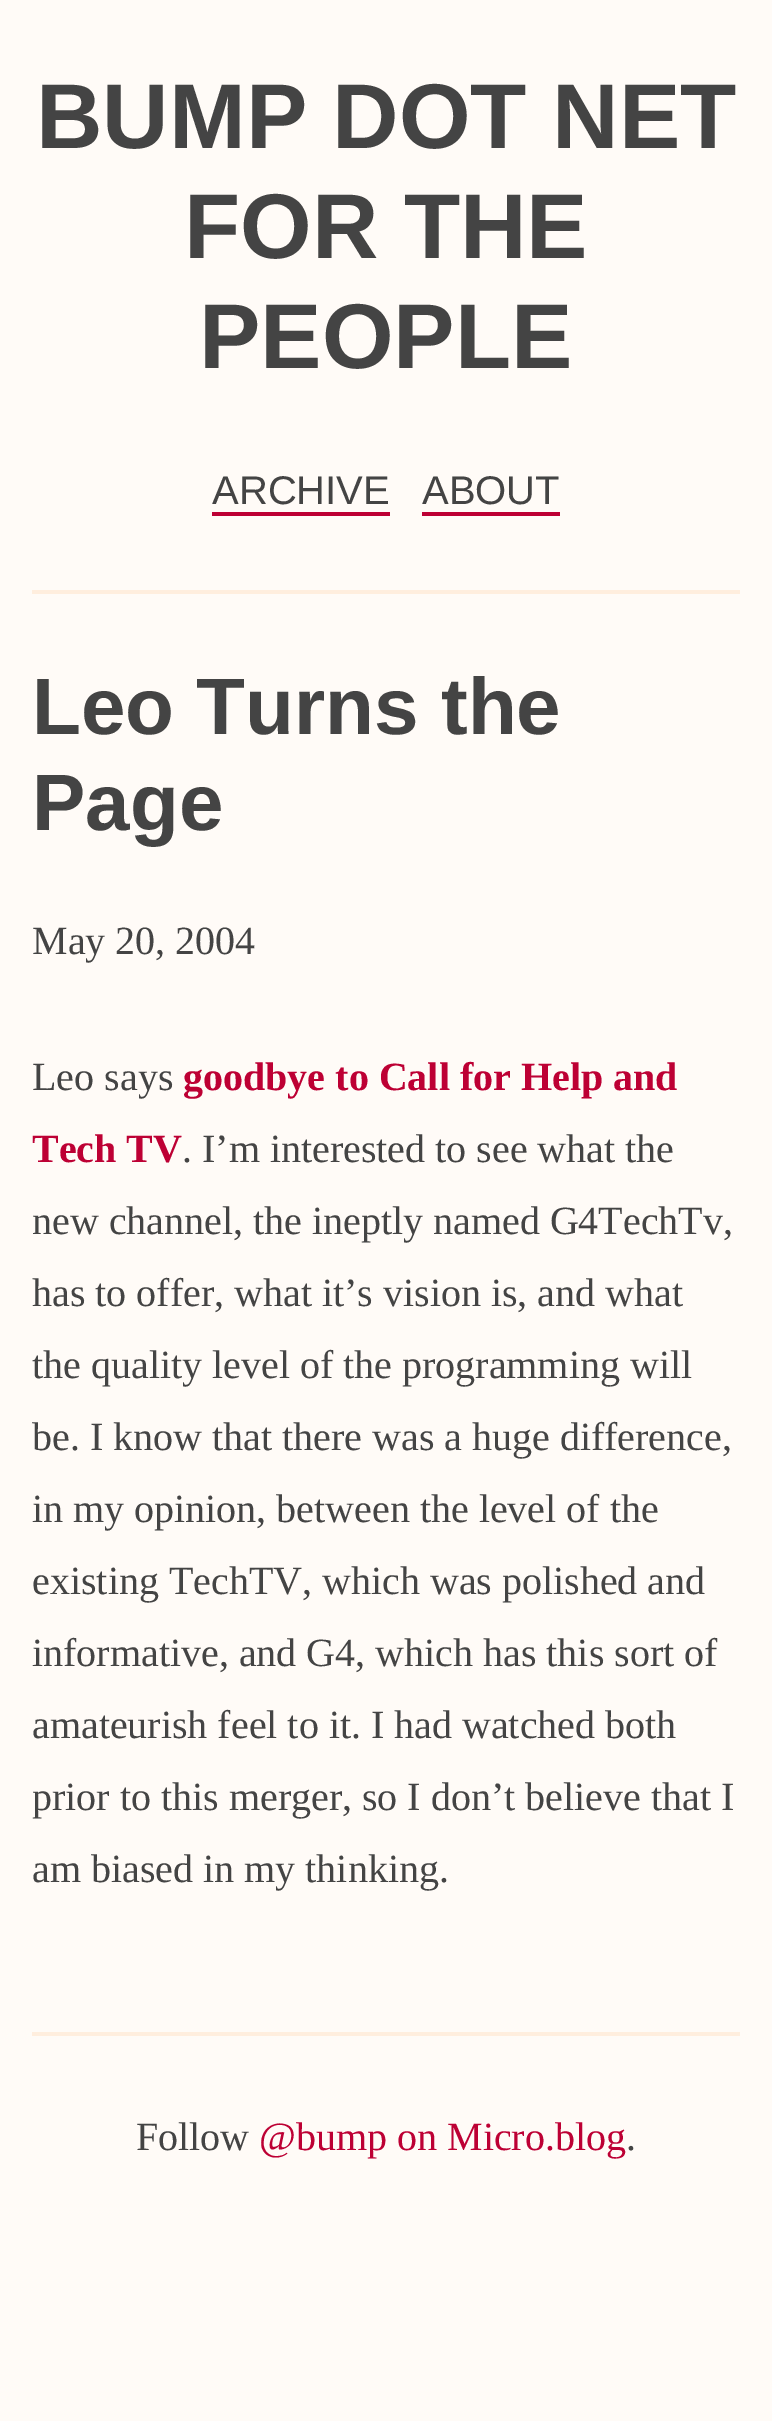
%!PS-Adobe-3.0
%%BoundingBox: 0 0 772 2421
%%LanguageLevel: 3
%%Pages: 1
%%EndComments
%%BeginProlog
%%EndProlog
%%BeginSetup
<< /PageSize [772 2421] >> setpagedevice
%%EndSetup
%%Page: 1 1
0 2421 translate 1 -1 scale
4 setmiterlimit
1 0.984 0.969 setrgbcolor
0 0 772 2421 rectfill
0.741 0 0.204 setrgbcolor
212 512 178 4 rectfill
422 512 138 4 rectfill
1 0.933 0.871 setrgbcolor
32 590 708 4 rectfill
32 2032 708 4 rectfill
/LiberationSans-Bold [92 0 0 -92 0 0] selectfont
0.267 setgray
36 148 moveto (BUMP DOT NET) show
184 258 moveto (FOR THE) show
199 368 moveto (PEOPLE) show
/LiberationSans-Regular [40 0 0 -40 0 0] selectfont
212 504 moveto (ARCHIVE) show
422 504 moveto (ABOUT) show
/LiberationSans-Bold [80 0 0 -80 0 0] selectfont
32 734 moveto (Leo Turns the) show
32 830 moveto (Page) show
/LiberationSerif-Regular [40 0 0 -40 0 0] selectfont
32 954 moveto (May 20, 2004) show
32 1090 moveto (Leo says) show
/LiberationSerif-Bold [40 0 0 -40 0 0] selectfont
0.741 0 0.204 setrgbcolor
183 1090 moveto (goodbye to Call for Help and) show
32 1162 moveto (Tech TV) show
/LiberationSerif-Regular [40 0 0 -40 0 0] selectfont
0.267 setgray
182 1162 moveto (. I’m interested to see what the) show
32 1234 moveto (new channel, the ineptly named G4TechTv,) show
32 1306 moveto (has to offer, what it’s vision is, and what) show
32 1378 moveto (the quality level of the programming will) show
32 1450 moveto (be. I know that there was a huge difference,) show
32 1522 moveto (in my opinion, between the level of the) show
32 1594 moveto (existing TechTV, which was polished and) show
32 1666 moveto (informative, and G4, which has this sort of) show
32 1738 moveto (amateurish feel to it. I had watched both) show
32 1810 moveto (prior to this merger, so I don’t believe that I) show
32 1882 moveto (am biased in my thinking.) show
136 2150 moveto (Follow) show
0.741 0 0.204 setrgbcolor
259 2150 moveto (@bump on Micro.blog) show
0.267 setgray
626 2150 moveto (.) show
showpage
%%EOF
